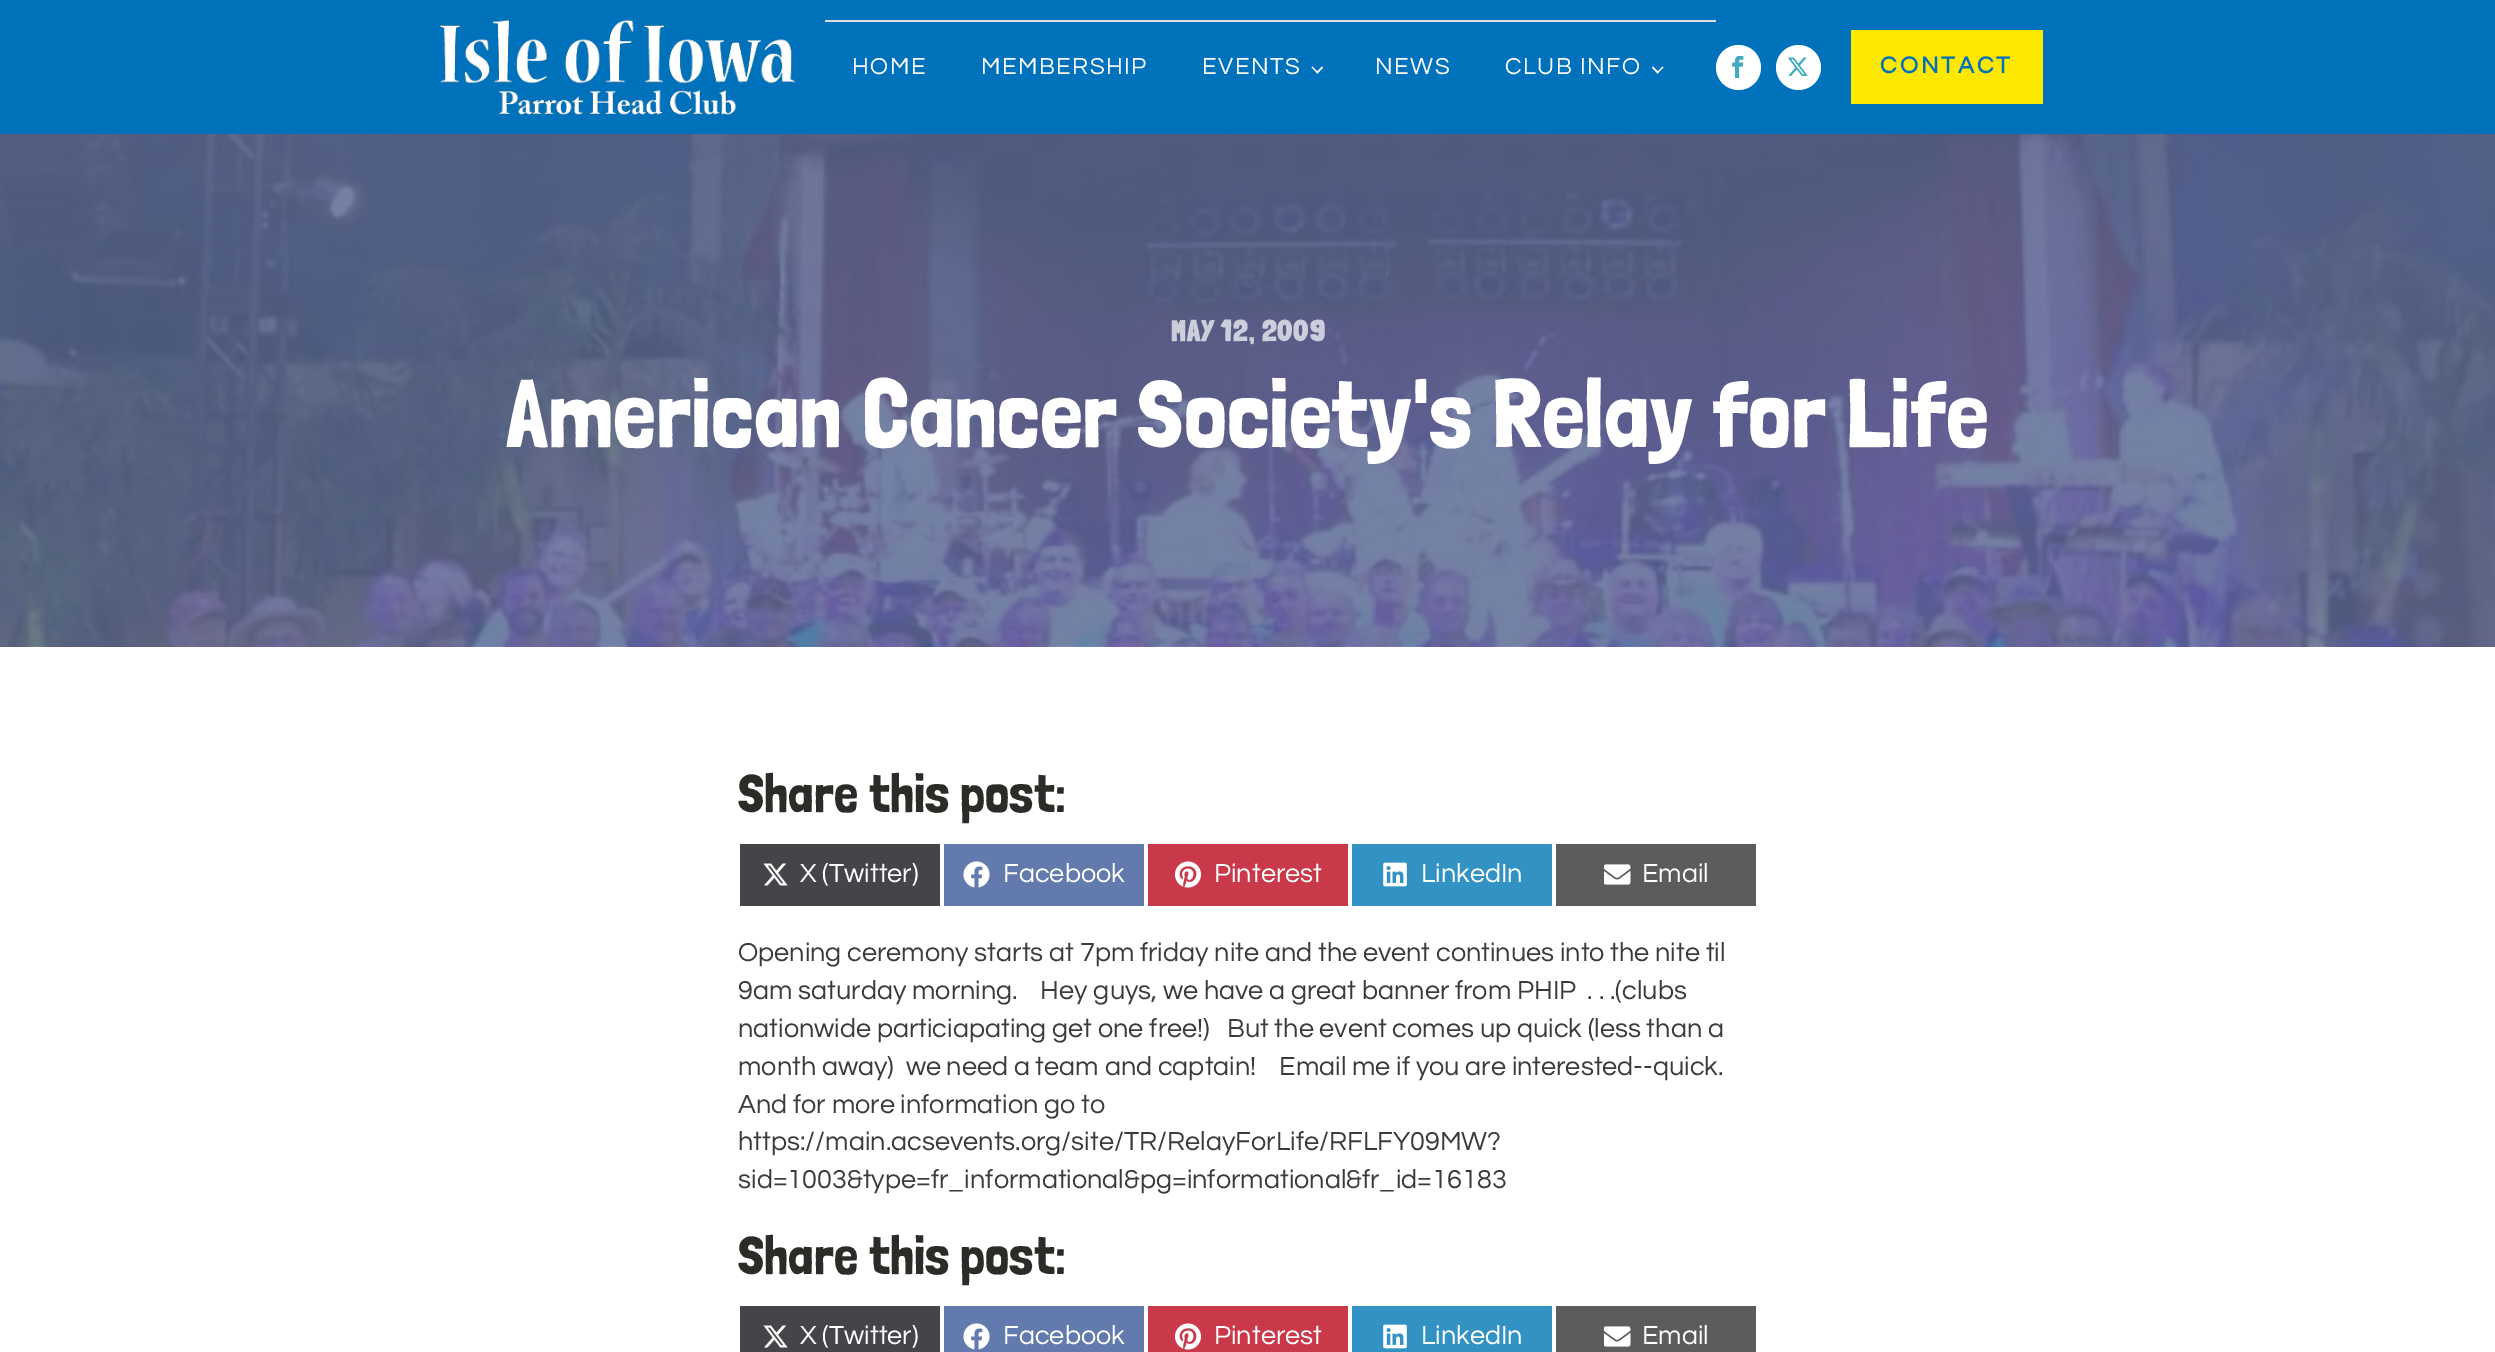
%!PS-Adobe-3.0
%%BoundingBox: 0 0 2495 1352
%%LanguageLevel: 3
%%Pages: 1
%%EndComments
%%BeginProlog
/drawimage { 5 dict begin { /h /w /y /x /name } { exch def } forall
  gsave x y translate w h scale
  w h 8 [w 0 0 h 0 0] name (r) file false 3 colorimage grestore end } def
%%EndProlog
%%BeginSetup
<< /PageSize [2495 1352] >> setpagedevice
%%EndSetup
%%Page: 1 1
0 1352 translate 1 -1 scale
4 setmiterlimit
1 setgray
0 0 2495 1352 rectfill
0 0.447 0.733 setrgbcolor
0 0 2495 134 rectfill
(images/1.raw) 439 19 356 96 drawimage
0.867 setgray
825 20 891 2 rectfill
1 setgray
newpath 1323 67.5 moveto 1317.5 73.5 lineto 1316 72.5 lineto 1322 66.5 lineto closepath fill
newpath 1318.5 72.5 moveto 1317.5 73.5 lineto 1311.5 67.5 lineto 1312.5 66.5 lineto closepath fill
newpath 1663.5 67.5 moveto 1657.5 73.5 lineto 1656.5 72.5 lineto 1662.5 66.5 lineto closepath fill
newpath 1659 72.5 moveto 1657.5 73.5 lineto 1652 67.5 lineto 1653 66.5 lineto closepath fill
newpath 1738.5 67.5 22.5 0 360 arc closepath fill
(images/2.raw) 1732 56 12 22 drawimage
newpath 1798.5 67.5 22.5 0 360 arc closepath fill
(images/3.raw) 1787 57 21 19 drawimage
0.996 0.91 0 setrgbcolor
1851 30 192 74 rectfill
(images/4.raw) 0 134 2495 513 drawimage
0.263 0.271 0.282 setrgbcolor
740 844 200 62 rectfill
(images/5.raw) 763 863 25 23 drawimage
0.384 0.478 0.678 setrgbcolor
944 844 200 62 rectfill
(images/6.raw) 963 861 27 27 drawimage
0.792 0.224 0.286 setrgbcolor
1148 844 200 62 rectfill
(images/7.raw) 1175 861 27 27 drawimage
0.2 0.573 0.769 setrgbcolor
1352 844 200 62 rectfill
(images/8.raw) 1383 862 24 25 drawimage
0.361 setgray
1556 844 200 62 rectfill
(images/9.raw) 1604 864 27 21 drawimage
0.263 0.271 0.282 setrgbcolor
740 1306 200 46 rectfill
(images/5.raw) 763 1325 25 23 drawimage
0.384 0.478 0.678 setrgbcolor
944 1306 200 46 rectfill
(images/6.raw) 963 1323 27 27 drawimage
0.792 0.224 0.286 setrgbcolor
1148 1306 200 46 rectfill
(images/7.raw) 1175 1323 27 27 drawimage
0.2 0.573 0.769 setrgbcolor
1352 1306 200 46 rectfill
(images/8.raw) 1383 1324 24 25 drawimage
0.361 setgray
1556 1306 200 46 rectfill
(images/9.raw) 1604 1326 27 21 drawimage
/Questrial-Regular [24 0 0 -24 0 0] selectfont
1 setgray
852 74 moveto 1.5 0 (HOME) ashow
981 74 moveto 1.5 0 (MEMBERSHIP) ashow
1202 74 moveto 1.5 0 (EVENTS) ashow
1375 74 moveto 1.5 0 (NEWS) ashow
1505 74 moveto 1.5 0 (CLUB INFO) ashow
/Questrial-Bold [24 0 0 -24 0 0] selectfont
0 0.447 0.733 setrgbcolor
1880 73 moveto 3 0 (CONTACT) ashow
/LondrinaSolid-Black [30 0 0 -30 0 0] selectfont
0.804 0.808 0.859 setrgbcolor
1171 341 moveto 0.75 0 (MAY 12, 2009) ashow
/LondrinaSolid-Regular [96 0 0 -96 0 0] selectfont
1 setgray
506 447 moveto (American Cancer Society's Relay for Life) show
/LondrinaSolid-Regular [54 0 0 -54 0 0] selectfont
0.169 0.173 0.153 setrgbcolor
738 812 moveto (Share this post:) show
/Questrial-Regular [27 0 0 -27 0 0] selectfont
1 setgray
800 882 moveto (X \(Twitter\)) show
1003 882 moveto (Facebook) show
1214 882 moveto (Pinterest) show
1421 882 moveto (LinkedIn) show
1642 882 moveto (Email) show
0.231 0.235 0.22 setrgbcolor
738 961 moveto (Opening ceremony starts at 7pm friday nite and the event continues into the nite til) show
738 999 moveto (9am saturday morning.    Hey guys, we have a great banner from PHIP  . . .\(clubs) show
738 1037 moveto (nationwide particiapating get one free!\)   But the event comes up quick \(less than a) show
738 1075 moveto (month away\)  we need a team and captain!    Email me if you are interested--quick.) show
738 1113 moveto (And for more information go to) show
738 1150 moveto (https://main.acsevents.org/site/TR/RelayForLife/RFLFY09MW?) show
738 1188 moveto (sid=1003&type=fr_informational&pg=informational&fr_id=16183) show
/LondrinaSolid-Regular [54 0 0 -54 0 0] selectfont
0.169 0.173 0.153 setrgbcolor
738 1274 moveto (Share this post:) show
/Questrial-Regular [27 0 0 -27 0 0] selectfont
1 setgray
800 1344 moveto (X \(Twitter\)) show
1003 1344 moveto (Facebook) show
1214 1344 moveto (Pinterest) show
1421 1344 moveto (LinkedIn) show
1642 1344 moveto (Email) show
showpage
%%EOF
